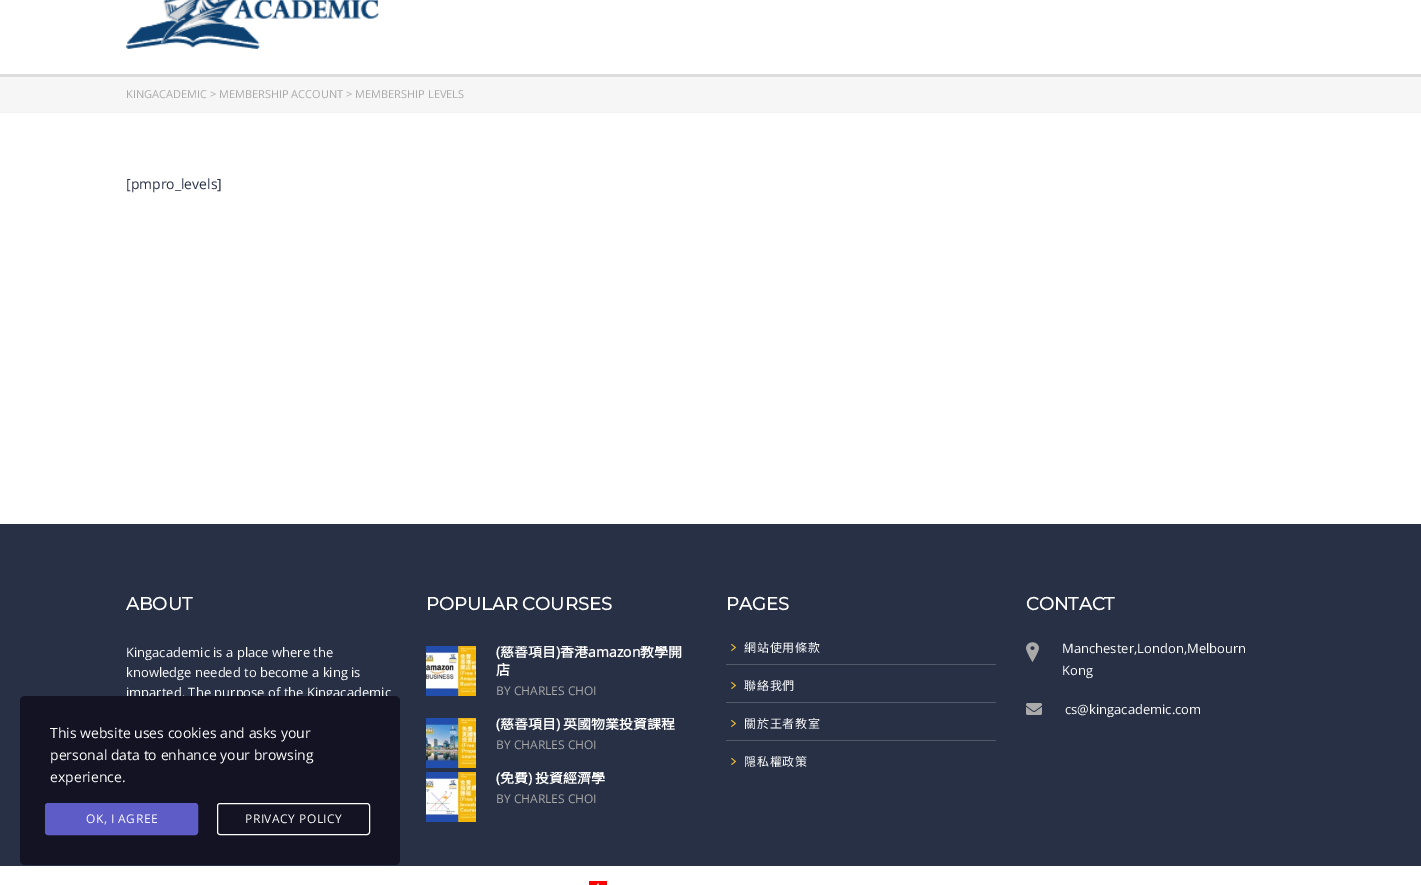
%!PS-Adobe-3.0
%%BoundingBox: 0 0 1421 885
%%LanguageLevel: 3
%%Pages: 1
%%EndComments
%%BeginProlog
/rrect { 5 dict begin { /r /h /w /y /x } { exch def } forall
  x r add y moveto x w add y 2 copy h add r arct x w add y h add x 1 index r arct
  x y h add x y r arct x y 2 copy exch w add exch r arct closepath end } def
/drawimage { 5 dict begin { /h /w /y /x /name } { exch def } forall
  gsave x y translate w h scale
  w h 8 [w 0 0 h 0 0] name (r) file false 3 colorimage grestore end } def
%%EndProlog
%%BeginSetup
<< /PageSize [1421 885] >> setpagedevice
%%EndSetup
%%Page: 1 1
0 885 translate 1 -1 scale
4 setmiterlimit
1 setgray
0 0 1421 885 rectfill
(images/1.raw) 126 0 253 49 drawimage
0.867 setgray
0 74 1421 3 rectfill
0.965 setgray
0 77 1421 35 rectfill
0.941 0.949 0.961 setrgbcolor
0 112 1421 1 rectfill
0.153 0.188 0.267 setrgbcolor
0 524 1421 342 rectfill
(images/2.raw) 426 646 50 50 drawimage
(images/3.raw) 426 718 50 50 drawimage
(images/4.raw) 426 772 50 50 drawimage
0.322 0.349 0.412 setrgbcolor
726 664 270 1 rectfill
(images/5.raw) 731 644 5 7 drawimage
726 702 270 1 rectfill
(images/5.raw) 731 682 5 7 drawimage
726 740 270 1 rectfill
(images/5.raw) 731 720 5 7 drawimage
(images/5.raw) 731 758 5 7 drawimage
(images/6.raw) 1026 642 13 20 drawimage
(images/7.raw) 1026 703 16 12 drawimage
(images/8.raw) 589 881 18 4 drawimage
/OpenSans-Regular [11 0 0 -11 0 0] selectfont
0.667 setgray
126 98 moveto (KINGACADEMIC > MEMBERSHIP ACCOUNT > MEMBERSHIP LEVELS) show
/OpenSans-Regular [14 0 0 -14 0 0] selectfont
0.153 0.188 0.267 setrgbcolor
126 189 moveto ([pmpro_levels]) show
/Montserrat-Bold [18 0 0 -18 0 0] selectfont
1 setgray
126 610 moveto (ABOUT) show
/OpenSans-Regular [13 0 0 -13 0 0] selectfont
126 657 moveto (Kingacademic is a place where the) show
126 677 moveto (knowledge needed to become a king is) show
126 697 moveto (imparted. The purpose of the Kingacademic) show
/Montserrat-Bold [18 0 0 -18 0 0] selectfont
426 610 moveto (POPULAR COURSES) show
/OpenSans-Bold [14 0 0 -14 0 0] selectfont
496 657 moveto (\() show
gsave
496 646 200 52 rectclip
/NotoSansCJKHK-Bold [14 0 0 -14 0 0] selectfont
500 657 moveto (慈善項目) show
grestore
556 657 moveto (\)) show
gsave
496 646 200 52 rectclip
/NotoSansCJKHK-Bold [14 0 0 -14 0 0] selectfont
560 657 moveto (香港) show
grestore
588 657 moveto (amazon) show
gsave
496 646 200 52 rectclip
/NotoSansCJKHK-Bold [14 0 0 -14 0 0] selectfont
640 657 moveto (教學開) show
grestore
/NotoSansCJKHK-Bold [14 0 0 -14 0 0] selectfont
496 675 moveto (店) show
/OpenSans-Regular [12 0 0 -12 0 0] selectfont
0.667 setgray
496 695 moveto (BY CHARLES CHOI) show
/OpenSans-Bold [14 0 0 -14 0 0] selectfont
1 setgray
496 729 moveto (\() show
gsave
496 718 200 34 rectclip
/NotoSansCJKHK-Bold [14 0 0 -14 0 0] selectfont
500 729 moveto (慈善項目) show
grestore
556 729 moveto (\)) show
gsave
496 718 200 34 rectclip
/NotoSansCJKHK-Bold [14 0 0 -14 0 0] selectfont
563 729 moveto (英國物業投資課程) show
grestore
/OpenSans-Regular [12 0 0 -12 0 0] selectfont
0.667 setgray
496 749 moveto (BY CHARLES CHOI) show
/OpenSans-Bold [14 0 0 -14 0 0] selectfont
1 setgray
496 783 moveto (\() show
gsave
496 772 200 34 rectclip
/NotoSansCJKHK-Bold [14 0 0 -14 0 0] selectfont
500 783 moveto (免費) show
grestore
528 783 moveto (\)) show
gsave
496 772 200 34 rectclip
/NotoSansCJKHK-Bold [14 0 0 -14 0 0] selectfont
535 783 moveto (投資經濟學) show
grestore
/OpenSans-Regular [12 0 0 -12 0 0] selectfont
0.667 setgray
496 803 moveto (BY CHARLES CHOI) show
/Montserrat-Bold [18 0 0 -18 0 0] selectfont
1 setgray
726 610 moveto (PAGES) show
/NotoSansCJKHK-Regular [12 0 0 -12 0 0] selectfont
744 652 moveto 0.75 0 (網站使用條款) ashow
744 690 moveto 0.75 0 (聯絡我們) ashow
744 728 moveto 0.75 0 (關於王者教室) ashow
744 766 moveto 0.75 0 (隠私權政策) ashow
/Montserrat-Bold [18 0 0 -18 0 0] selectfont
1026 610 moveto (CONTACT) show
/OpenSans-Regular [13 0 0 -13 0 0] selectfont
1062 653 moveto (Manchester,London,Melbourn) show
1062 675 moveto (Kong) show
1065 714 moveto (cs@kingacademic.com) show
0.075 0.075 0.137 setrgbcolor
20 696 380 169 5 rrect fill
/OpenSans-Regular [14 0 0 -14 0 0] selectfont
1 setgray
50 738 moveto (This website uses cookies and asks your) show
50 760 moveto (personal data to enhance your browsing) show
50 782 moveto (experience.) show
0.369 0.361 0.78 setrgbcolor
45.5 803.5 152 31 2.5 rrect gsave fill grestore
stroke
/OpenSans-Regular [12 0 0 -12 0 0] selectfont
1 setgray
86 823 moveto 0.5 0 (OK, I AGREE) ashow
217.5 803.5 152 31 2.5 rrect stroke
245 823 moveto 0.5 0 (PRIVACY POLICY) ashow
showpage
%%EOF
